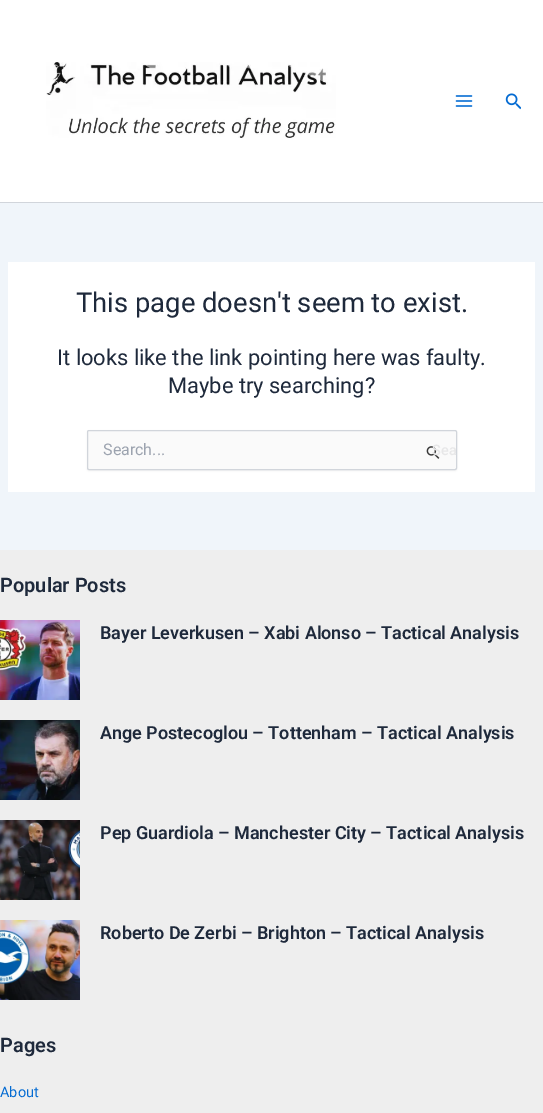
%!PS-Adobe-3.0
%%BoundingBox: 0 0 543 1113
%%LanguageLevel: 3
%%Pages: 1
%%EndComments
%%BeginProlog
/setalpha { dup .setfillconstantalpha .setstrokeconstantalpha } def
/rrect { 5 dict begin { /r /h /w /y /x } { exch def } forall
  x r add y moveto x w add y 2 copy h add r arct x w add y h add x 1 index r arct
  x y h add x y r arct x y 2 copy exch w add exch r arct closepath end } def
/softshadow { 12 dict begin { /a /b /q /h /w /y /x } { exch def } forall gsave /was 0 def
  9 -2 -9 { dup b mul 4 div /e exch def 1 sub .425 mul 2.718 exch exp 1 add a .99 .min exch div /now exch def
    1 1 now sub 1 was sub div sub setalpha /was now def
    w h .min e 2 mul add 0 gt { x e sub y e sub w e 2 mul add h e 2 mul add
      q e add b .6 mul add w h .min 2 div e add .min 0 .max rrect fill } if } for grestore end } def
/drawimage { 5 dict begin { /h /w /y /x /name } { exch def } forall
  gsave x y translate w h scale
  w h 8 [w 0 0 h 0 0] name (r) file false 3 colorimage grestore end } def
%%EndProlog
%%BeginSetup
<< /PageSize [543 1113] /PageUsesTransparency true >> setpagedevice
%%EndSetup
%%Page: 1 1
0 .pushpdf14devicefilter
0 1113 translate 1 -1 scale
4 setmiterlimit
0.941 0.961 0.98 setrgbcolor
0 0 543 1113 rectfill
1 setgray
0 0 543 202 rectfill
0.82 0.835 0.859 setrgbcolor
0 202 543 1 rectfill
(images/1.raw) 46 62 290 76 drawimage
(images/2.raw) 455 95 18 12 drawimage
(images/3.raw) 505 93 16 17 drawimage
1 setgray
8 262 527 230 rectfill
0 setgray
87 431 370 40 2 1 0.05 softshadow
0.98 setgray
87.5 430.5 369 39 1.5 rrect gsave fill grestore
0.82 0.835 0.859 setrgbcolor
stroke
(images/4.raw) 426 446 14 13 drawimage
0.933 setgray
0 550 543 563 rectfill
(images/5.raw) 0 620 80 80 drawimage
(images/6.raw) 0 720 80 80 drawimage
(images/7.raw) 0 820 80 80 drawimage
(images/8.raw) 0 920 80 80 drawimage
/Roboto-Regular [27.4 0 0 -27.4 0 0] selectfont
0.118 0.161 0.231 setrgbcolor
76 312 moveto (This page doesn't seem to exist.) show
/Roboto-Regular [21.9 0 0 -21.9 0 0] selectfont
57 365 moveto (It looks like the link pointing here was faulty.) show
168 393 moveto (Maybe try searching?) show
/Roboto-Regular [16 0 0 -16 0 0] selectfont
0.612 0.639 0.686 setrgbcolor
103 455 moveto (Search...) show
/Roboto-Medium [14.5 0 0 -14.5 0 0] selectfont
0.906 0.906 0.91 setrgbcolor
432 455 moveto (Sea) show
/Roboto-SemiBold [20 0 0 -20 0 0] selectfont
0.118 0.161 0.231 setrgbcolor
0 592 moveto (Popular Posts) show
/Roboto-SemiBold [18 0 0 -18 0 0] selectfont
100 639 moveto (Bayer Leverkusen – Xabi Alonso – Tactical Analysis) show
100 739 moveto (Ange Postecoglou – Tottenham – Tactical Analysis) show
100 839 moveto (Pep Guardiola – Manchester City – Tactical Analysis) show
100 939 moveto (Roberto De Zerbi – Brighton – Tactical Analysis) show
/Roboto-SemiBold [20 0 0 -20 0 0] selectfont
0 1052 moveto (Pages) show
/Roboto-Regular [14.5 0 0 -14.5 0 0] selectfont
0.016 0.42 0.824 setrgbcolor
0 1097 moveto (About) show
.poppdf14devicefilter showpage
%%EOF
